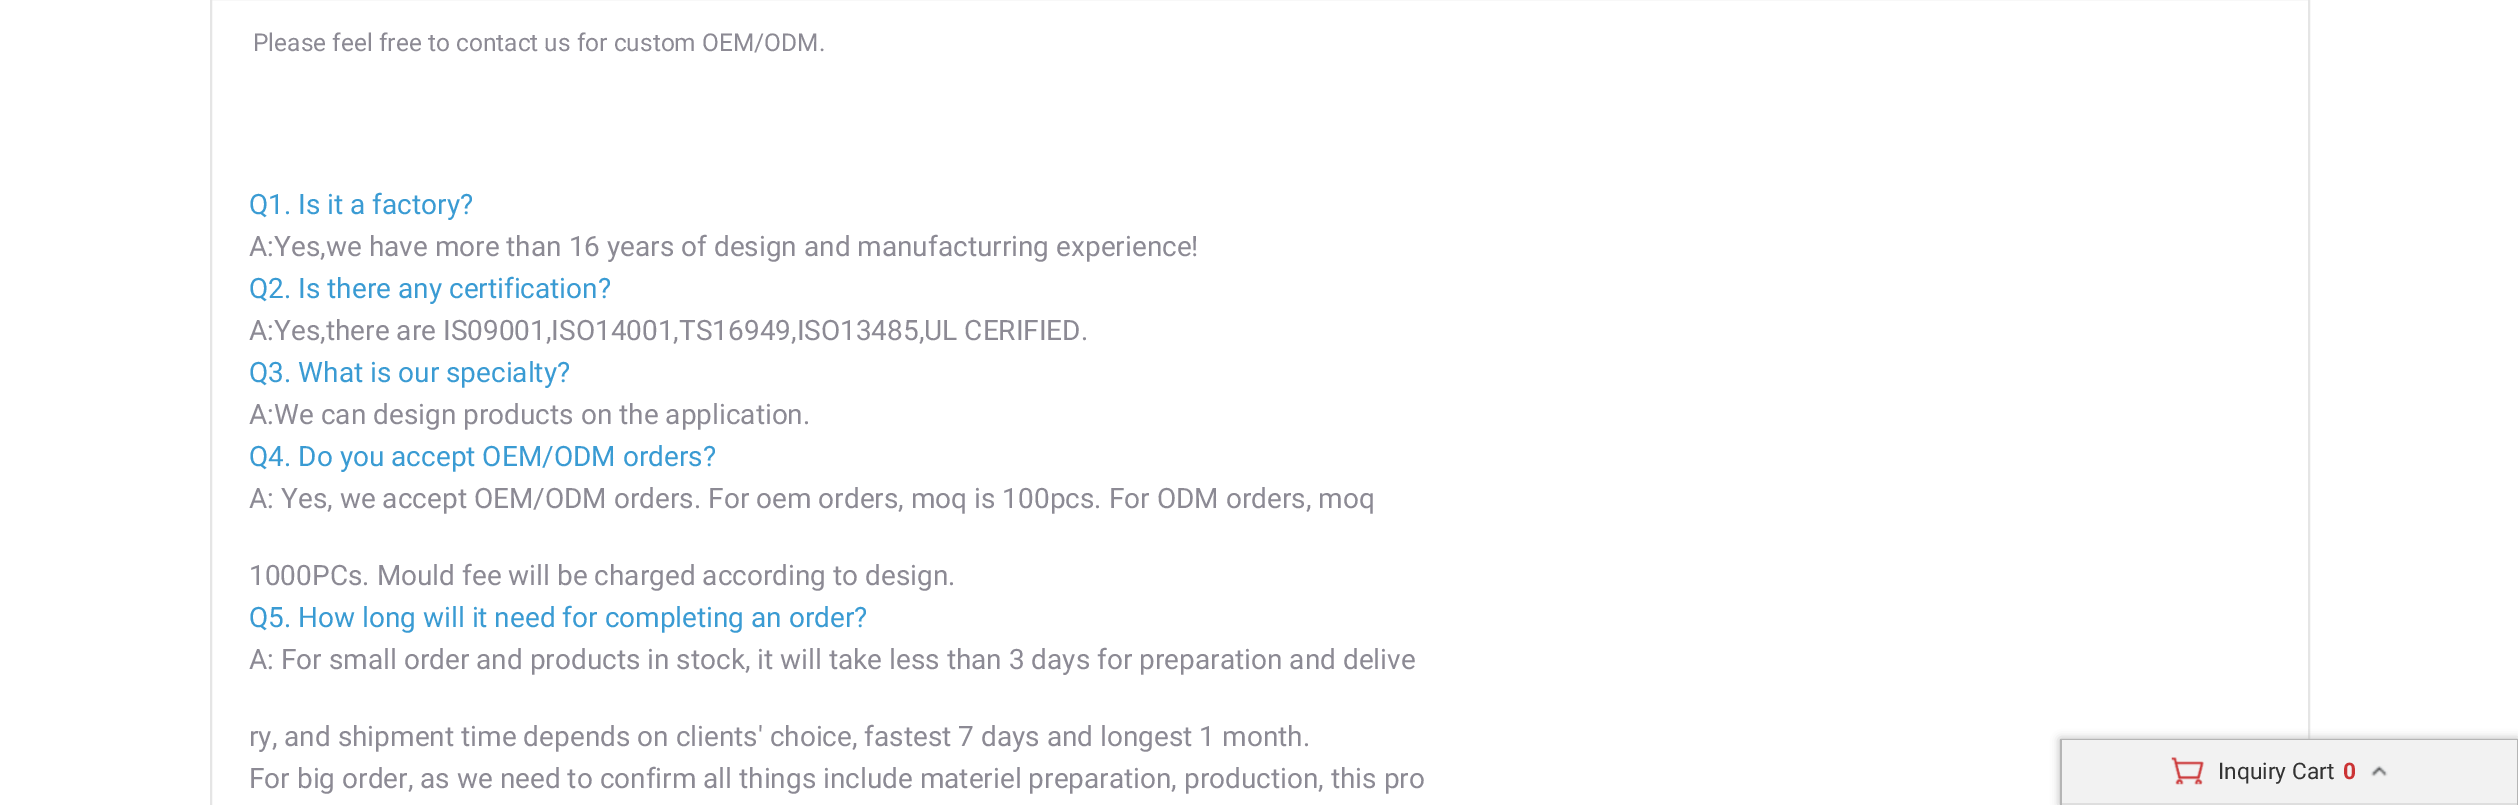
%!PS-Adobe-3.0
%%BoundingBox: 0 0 2518 805
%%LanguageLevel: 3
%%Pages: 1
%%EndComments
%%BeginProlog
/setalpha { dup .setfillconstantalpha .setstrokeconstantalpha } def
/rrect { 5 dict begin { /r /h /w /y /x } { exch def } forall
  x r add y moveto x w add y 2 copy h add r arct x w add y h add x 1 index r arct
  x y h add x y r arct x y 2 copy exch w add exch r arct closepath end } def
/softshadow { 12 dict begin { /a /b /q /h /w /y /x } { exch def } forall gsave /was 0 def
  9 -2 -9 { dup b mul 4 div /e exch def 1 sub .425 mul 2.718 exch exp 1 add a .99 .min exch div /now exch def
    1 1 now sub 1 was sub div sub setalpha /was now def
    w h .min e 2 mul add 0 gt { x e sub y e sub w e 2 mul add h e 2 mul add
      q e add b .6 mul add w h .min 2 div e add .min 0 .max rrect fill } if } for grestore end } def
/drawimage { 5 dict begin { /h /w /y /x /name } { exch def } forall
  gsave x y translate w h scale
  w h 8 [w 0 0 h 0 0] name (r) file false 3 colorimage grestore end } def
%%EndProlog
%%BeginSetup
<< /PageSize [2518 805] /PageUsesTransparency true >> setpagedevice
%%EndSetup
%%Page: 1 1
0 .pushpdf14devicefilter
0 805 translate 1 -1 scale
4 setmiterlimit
1 setgray
0 0 2518 805 rectfill
0.898 setgray
2 setlinewidth
211 -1 2098 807 rectstroke
0.71 setgray
2060 739 458 66 0 4.5 1 softshadow
2060 739 458 1 rectfill
2517 739 1 66 rectfill
2060 739 2 66 rectfill
0.949 setgray
2062 740 455 63 rectfill
0.871 setgray
2062 803 455 2 rectfill
(images/1.raw) 2171 757 33 28 drawimage
(images/2.raw) 2370 765 18 12 drawimage
/Roboto-Regular [24.5 0 0 -24.5 0 0] selectfont
0.549 0.541 0.58 setrgbcolor
253 51 moveto (Please feel free to contact us for custom OEM/ODM.) show
/Roboto-Regular [28 0 0 -28 0 0] selectfont
0.227 0.608 0.827 setrgbcolor
249 214 moveto (Q1. Is it a factory?) show
0.549 0.541 0.58 setrgbcolor
249 256 moveto (A:Yes,we have more than 16 years of design and manufacturring experience!) show
0.227 0.608 0.827 setrgbcolor
249 298 moveto (Q2. Is there any certification?) show
0.549 0.541 0.58 setrgbcolor
249 340 moveto (A:Yes,there are IS09001,ISO14001,TS16949,ISO13485,UL CERIFIED.) show
0.227 0.608 0.827 setrgbcolor
249 382 moveto (Q3. What is our specialty?) show
0.549 0.541 0.58 setrgbcolor
249 424 moveto (A:We can design products on the application.) show
0.227 0.608 0.827 setrgbcolor
249 466 moveto (Q4. Do you accept OEM/ODM orders?) show
0.549 0.541 0.58 setrgbcolor
249 508 moveto (A: Yes, we accept OEM/ODM orders. For oem orders, moq is 100pcs. For ODM orders, moq) show
249 585 moveto (1000PCs. Mould fee will be charged according to design.) show
0.227 0.608 0.827 setrgbcolor
249 627 moveto (Q5. How long will it need for completing an order?) show
0.549 0.541 0.58 setrgbcolor
249 669 moveto (A: For small order and products in stock, it will take less than 3 days for preparation and delive) show
249 746 moveto (ry, and shipment time depends on clients' choice, fastest 7 days and longest 1 month.) show
249 788 moveto (For big order, as we need to confirm all things include materiel preparation, production, this pro) show
/Roboto-Regular [22.75 0 0 -22.75 0 0] selectfont
0.2 setgray
2218 779 moveto (Inquiry Cart) show
/Roboto-Bold [22.75 0 0 -22.75 0 0] selectfont
0.796 0.204 0.208 setrgbcolor
2343 779 moveto (0) show
.poppdf14devicefilter showpage
%%EOF
